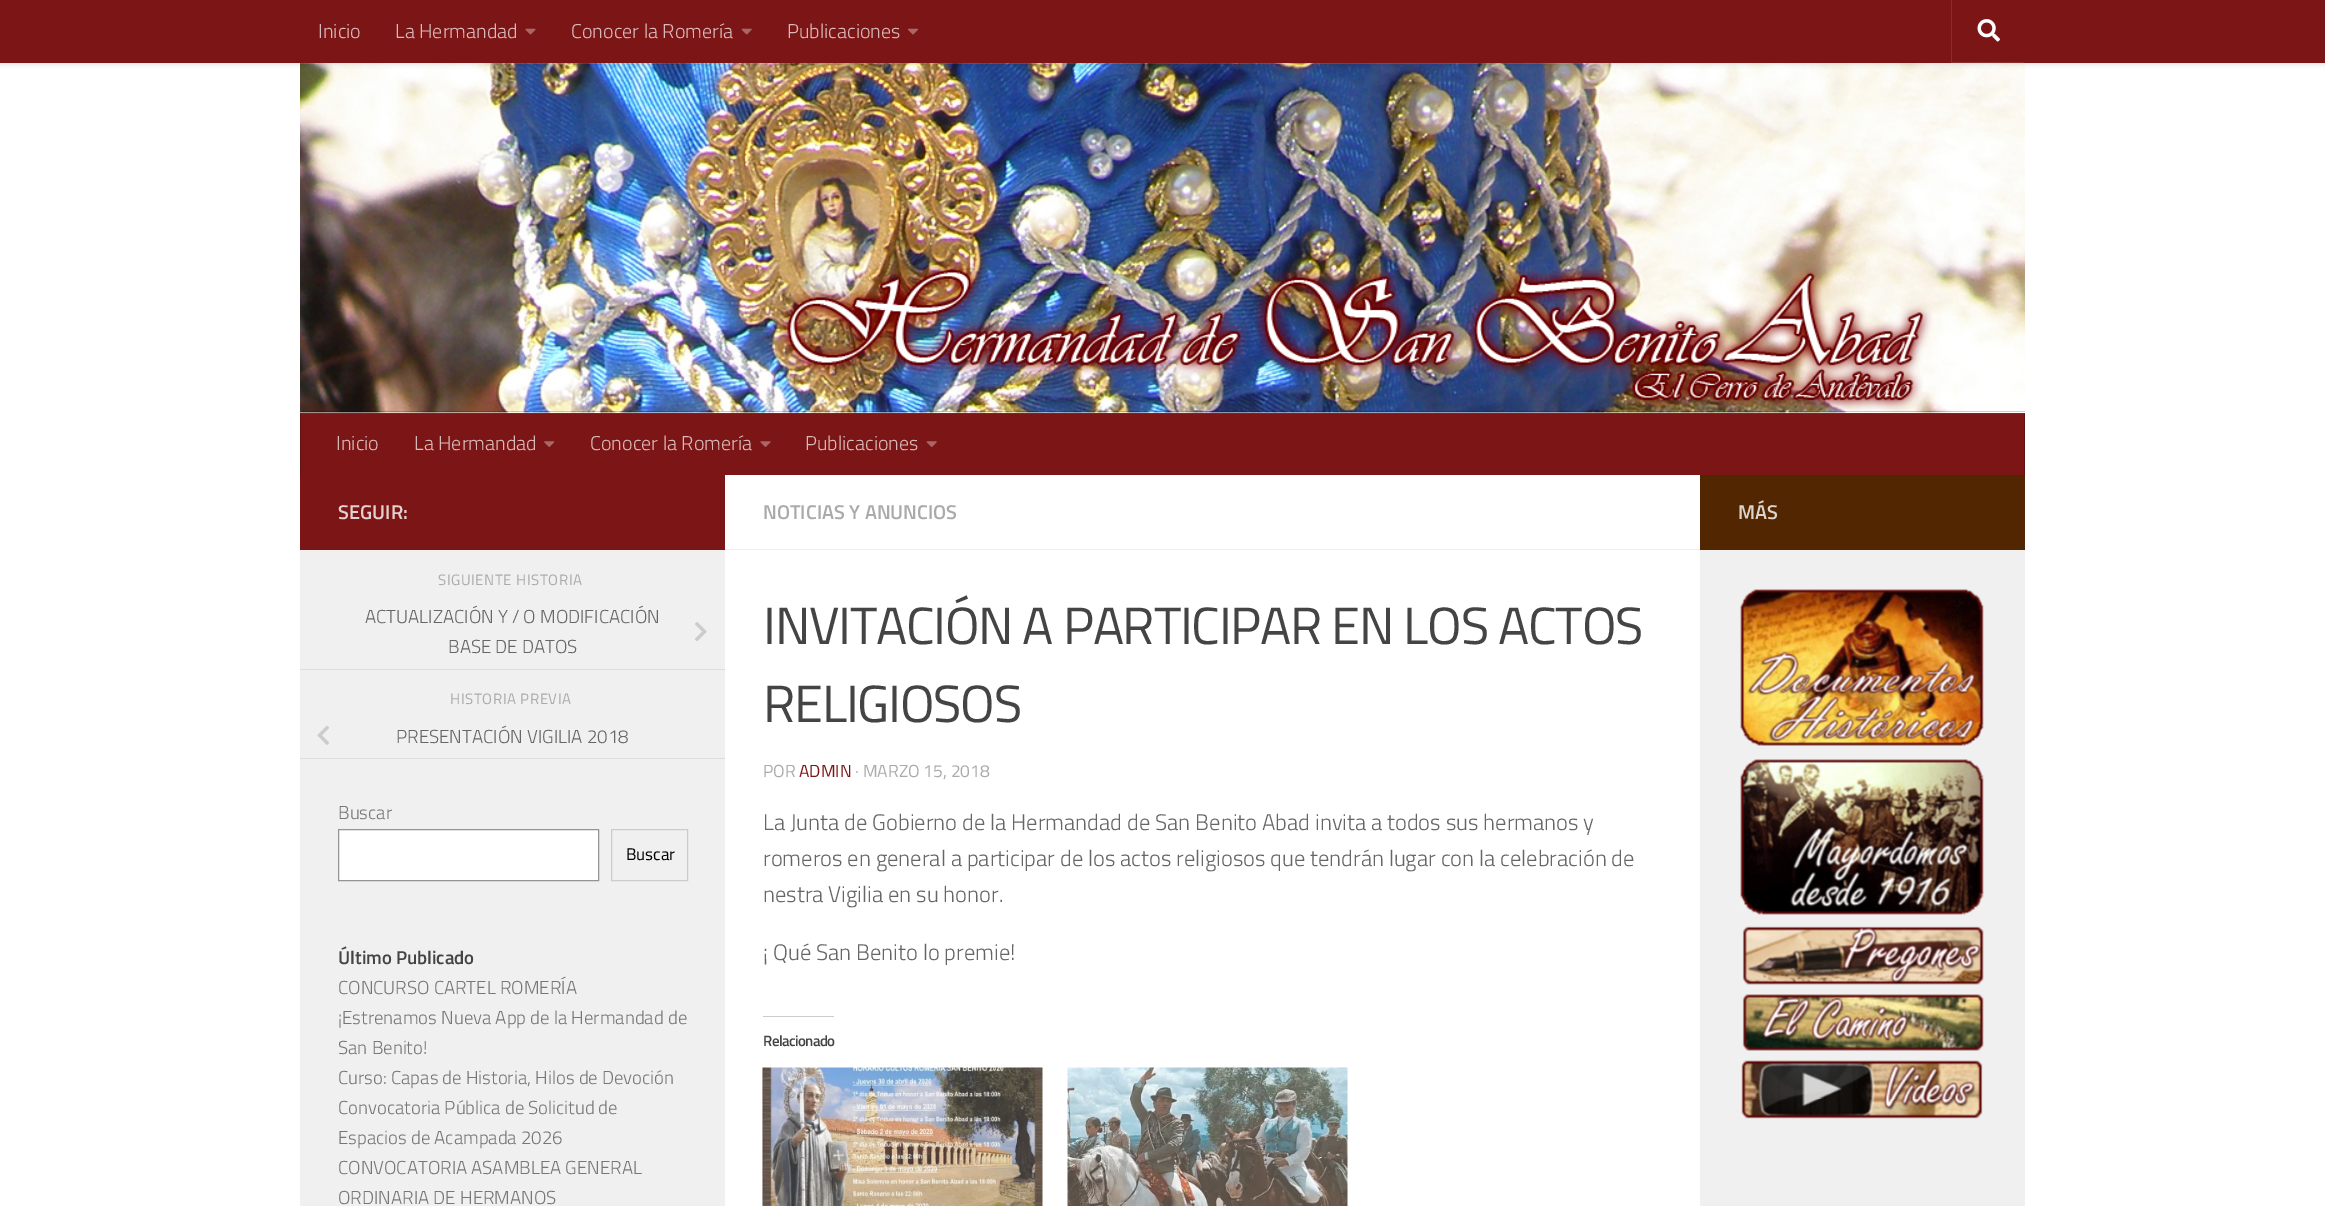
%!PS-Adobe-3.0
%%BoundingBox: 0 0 2325 1206
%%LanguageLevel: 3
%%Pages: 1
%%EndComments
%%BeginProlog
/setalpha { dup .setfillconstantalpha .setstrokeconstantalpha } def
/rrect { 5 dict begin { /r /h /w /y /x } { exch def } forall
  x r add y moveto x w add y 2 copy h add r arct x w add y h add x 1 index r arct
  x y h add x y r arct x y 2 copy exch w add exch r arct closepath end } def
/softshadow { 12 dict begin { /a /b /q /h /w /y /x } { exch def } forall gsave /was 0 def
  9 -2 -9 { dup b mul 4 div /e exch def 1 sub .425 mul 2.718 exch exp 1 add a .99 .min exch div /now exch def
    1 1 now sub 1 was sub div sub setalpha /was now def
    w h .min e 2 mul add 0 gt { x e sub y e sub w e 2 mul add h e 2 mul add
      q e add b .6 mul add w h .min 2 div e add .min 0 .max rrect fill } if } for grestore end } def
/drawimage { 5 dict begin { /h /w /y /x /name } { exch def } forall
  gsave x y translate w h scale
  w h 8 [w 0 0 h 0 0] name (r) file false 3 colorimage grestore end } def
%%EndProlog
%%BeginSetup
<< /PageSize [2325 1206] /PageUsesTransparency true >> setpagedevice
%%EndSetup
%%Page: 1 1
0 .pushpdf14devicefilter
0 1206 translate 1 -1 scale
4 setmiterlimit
1 setgray
0 0 2325 1206 rectfill
(images/5.raw) 300 63 1725 350 drawimage
0.15 setalpha
300 63 1725 1 rectfill
1 setalpha
0 setgray
0 0 2325 63 0 3 0.2 softshadow
0.486 0.086 0.086 setrgbcolor
0 0 2325 63 rectfill
(images/1.raw) 525 28 11 7 drawimage
(images/2.raw) 741 28 11 7 drawimage
(images/3.raw) 908 28 10 7 drawimage
0.537 0.176 0.176 setrgbcolor
newpath 1951 0 moveto 1951 63 lineto 2024 63 lineto 2024 62 lineto 1952 62 lineto 1952 0 lineto closepath fill
(images/4.raw) 1977 19 23 23 drawimage
0.2 setalpha
0 setgray
300 411 1725 1 rectfill
1 setalpha
0.486 0.086 0.086 setrgbcolor
301 414 1723 61 rectfill
0.514 0.133 0.133 setrgbcolor
300 413 1725 1 rectfill
0.388 0.071 0.071 setrgbcolor
2024 413 1 62 rectfill
0.42 0.118 0.118 setrgbcolor
2024 413 1 1 rectfill
0.388 0.071 0.071 setrgbcolor
300 413 1 62 rectfill
0.42 0.118 0.118 setrgbcolor
300 413 1 1 rectfill
(images/6.raw) 544 441 11 6 drawimage
(images/7.raw) 760 441 11 6 drawimage
(images/8.raw) 926 441 11 6 drawimage
0.486 0.086 0.086 setrgbcolor
300 475 425 75 rectfill
0.941 setgray
300 550 425 656 rectfill
0.867 setgray
300 669 425 1 rectfill
(images/9.raw) 695 622 12 19 drawimage
300 758 425 1 rectfill
(images/10.raw) 317 725 12 20 drawimage
1 setgray
newpath 338.5 829.5 moveto 598.5 829.5 lineto 598.5 880.5 lineto 338.5 880.5 lineto closepath gsave fill grestore
0.58 setgray
stroke
0.8 setgray
611.5 829.5 76 51 rectstroke
0.933 setgray
725 549 975 1 rectfill
0.8 setgray
763 1016 71 1 rectfill
(images/11.raw) 762 1067 281 139 drawimage
(images/12.raw) 1067 1067 281 139 drawimage
0.318 0.149 0 setrgbcolor
1700 475 325 75 rectfill
0.941 setgray
1700 550 325 656 rectfill
(images/13.raw) 1740 589 244 157 drawimage
(images/14.raw) 1740 759 244 156 drawimage
(images/15.raw) 1742 926 242 59 drawimage
(images/16.raw) 1742 994 242 57 drawimage
(images/17.raw) 1741 1060 242 59 drawimage
/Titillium-Light [20 0 0 -20 0 0] selectfont
0.847 0.725 0.725 setrgbcolor
318 38 moveto (Inicio) show
395 38 moveto (La Hermandad) show
571 38 moveto (Conocer la Romería) show
787 38 moveto (Publicaciones) show
336 450 moveto (Inicio) show
414 450 moveto (La Hermandad) show
590 450 moveto (Conocer la Romería) show
805 450 moveto (Publicaciones) show
/Titillium-SemiBold [20 0 0 -20 0 0] selectfont
0.898 0.816 0.816 setrgbcolor
338 519 moveto (SEGUIR:) show
/Titillium-Regular [15 0 0 -15 0 0] selectfont
0.667 setgray
438 585 moveto 0.6 0 (SIGUIENTE HISTORIA) ashow
/Titillium-Light [18.75 0 0 -18.75 0 0] selectfont
0.4 setgray
365 623 moveto (ACTUALIZACIÓN Y / O MODIFICACIÓN) show
448 653 moveto (BASE DE DATOS) show
/Titillium-Regular [15 0 0 -15 0 0] selectfont
0.667 setgray
450 704 moveto 0.6 0 (HISTORIA PREVIA) ashow
/Titillium-Light [18.75 0 0 -18.75 0 0] selectfont
0.4 setgray
396 743 moveto (PRESENTACIÓN VIGILIA 2018) show
0.467 setgray
338 819 moveto (Buscar) show
/Titillium-Regular [17 0 0 -17 0 0] selectfont
0 setgray
626 860 moveto (Buscar) show
/Titillium-SemiBold [18.75 0 0 -18.75 0 0] selectfont
0.267 setgray
338 964 moveto (Último Publicado) show
/Titillium-Light [18.75 0 0 -18.75 0 0] selectfont
0.467 setgray
338 994 moveto (CONCURSO CARTEL ROMERÍA) show
338 1024 moveto (¡Estrenamos Nueva App de la Hermandad de) show
338 1054 moveto (San Benito!) show
338 1084 moveto (Curso: Capas de Historia, Hilos de Devoción) show
338 1114 moveto (Convocatoria Pública de Solicitud de) show
338 1144 moveto (Espacios de Acampada 2026) show
338 1174 moveto (CONVOCATORIA ASAMBLEA GENERAL) show
338 1204 moveto (ORDINARIA DE HERMANOS) show
/Titillium-SemiBold [20 0 0 -20 0 0] selectfont
0.667 setgray
763 519 moveto (NOTICIAS Y ANUNCIOS) show
/Titillium-Regular [52.4 0 0 -52.4 0 0] selectfont
0.267 setgray
763 644 moveto -1.25 0 (INVITACIÓN A PARTICIPAR EN LOS ACTOS) ashow
763 722 moveto -1.25 0 (RELIGIOSOS) ashow
/Titillium-Regular [17.5 0 0 -17.5 0 0] selectfont
0.667 setgray
763 777 moveto (POR) show
0.486 0.086 0.086 setrgbcolor
799 777 moveto (ADMIN) show
0.667 setgray
855 777 moveto (· MARZO 15, 2018) show
/Titillium-Light [22.5 0 0 -22.5 0 0] selectfont
0.4 setgray
763 830 moveto (La Junta de Gobierno de la Hermandad de San Benito Abad invita a todos sus hermanos y) show
763 866 moveto (romeros en general a participar de los actos religiosos que tendrán lugar con la celebración de) show
763 902 moveto (nestra Vigilia en su honor.) show
763 960 moveto (¡ Qué San Benito lo premie!) show
/Titillium-SemiBold [15 0 0 -15 0 0] selectfont
0.267 setgray
763 1046 moveto -0.6 0 (Relacionado) ashow
/Titillium-SemiBold [20 0 0 -20 0 0] selectfont
0.863 0.831 0.8 setrgbcolor
1738 519 moveto (MÁS) show
.poppdf14devicefilter showpage
%%EOF
